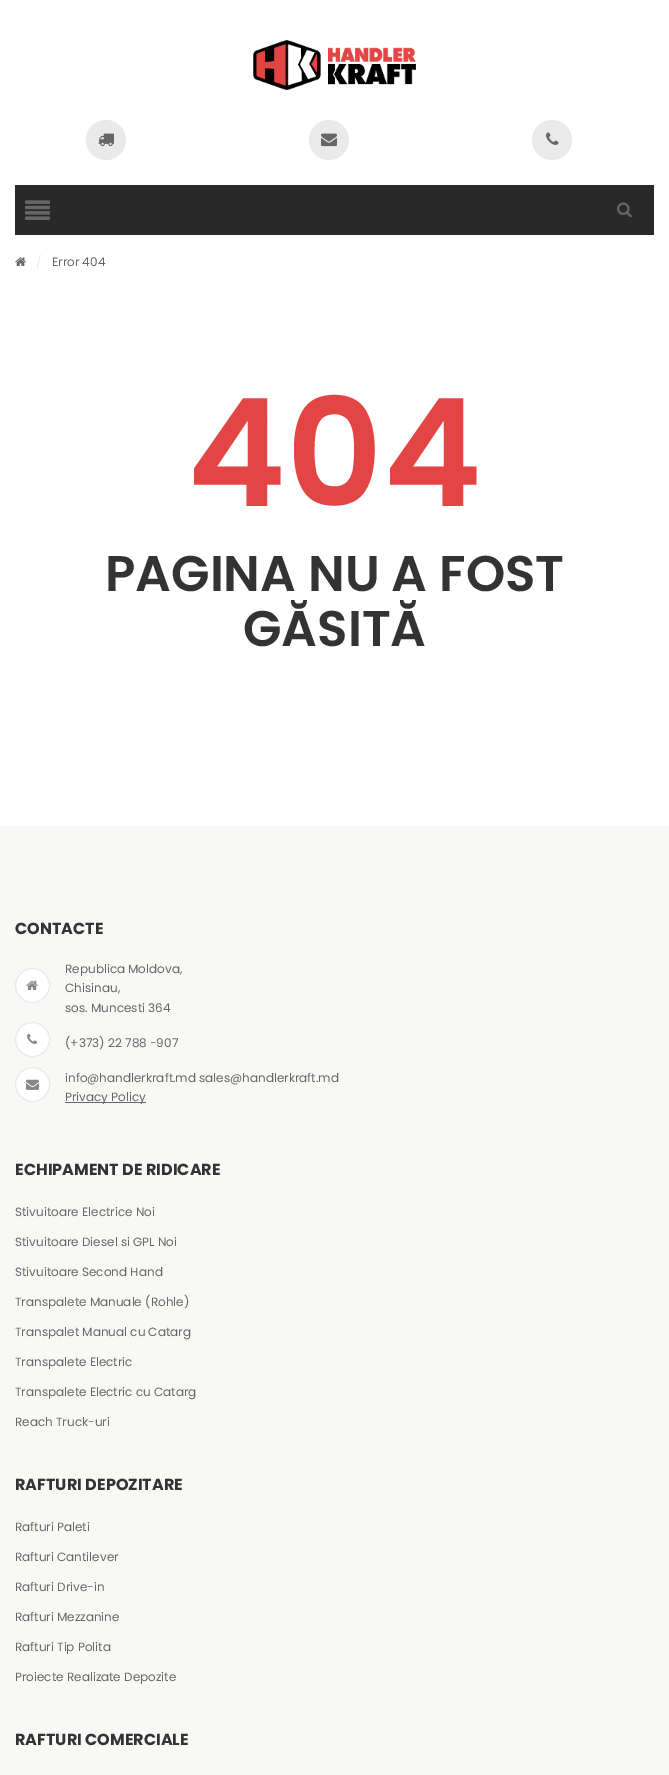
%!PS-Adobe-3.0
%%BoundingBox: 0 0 669 1775
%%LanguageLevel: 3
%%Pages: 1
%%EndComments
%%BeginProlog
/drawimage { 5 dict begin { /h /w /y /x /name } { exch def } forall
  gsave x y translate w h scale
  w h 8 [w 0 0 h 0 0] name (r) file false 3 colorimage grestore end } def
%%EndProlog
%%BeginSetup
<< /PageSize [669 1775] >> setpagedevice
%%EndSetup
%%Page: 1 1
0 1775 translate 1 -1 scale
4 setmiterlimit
1 setgray
0 0 669 1775 rectfill
(images/1.raw) 253 40 163 50 drawimage
0.918 setgray
newpath 106 140 20 0 360 arc closepath fill
(images/2.raw) 98 133 16 14 drawimage
newpath 329 140 20 0 360 arc closepath fill
(images/3.raw) 321 133 16 14 drawimage
newpath 552 140 20 0 360 arc closepath fill
(images/4.raw) 546 132 13 13 drawimage
0.161 setgray
15 185 639 50 rectfill
(images/5.raw) 25 200 25 20 drawimage
(images/6.raw) 617 202 15 16 drawimage
(images/7.raw) 15 257 11 9 drawimage
0.973 0.973 0.965 setrgbcolor
0 826 669 949 rectfill
1 setgray
newpath 32.5 985.5 17 0 360 arc closepath gsave fill grestore
0.918 setgray
stroke
(images/8.raw) 26 980 12 10 drawimage
1 setgray
newpath 32.5 1039.5 17 0 360 arc closepath gsave fill grestore
0.918 setgray
stroke
(images/9.raw) 27 1033 11 11 drawimage
1 setgray
newpath 32.5 1084.5 17 0 360 arc closepath gsave fill grestore
0.918 setgray
stroke
(images/10.raw) 26 1079 13 11 drawimage
0.4 setgray
65 1102 81 1 rectfill
/Poppins-Regular [12 0 0 -12 0 0] selectfont
0.918 setgray
36 266 moveto (/) show
0.4 setgray
52 266 moveto (Error 404) show
/Poppins-SemiBold [150 0 0 -150 0 0] selectfont
0.89 0.267 0.267 setrgbcolor
187 506 moveto (404) show
/Poppins-SemiBold [50 0 0 -50 0 0] selectfont
0.2 setgray
105 591 moveto (PAGINA NU A FOST) show
243 646 moveto (GĂSITĂ) show
/Poppins-Bold [16 0 0 -16 0 0] selectfont
15 934 moveto (CONTACTE) show
/Poppins-Regular [12 0 0 -12 0 0] selectfont
0.4 setgray
65 973 moveto (Republica Moldova,) show
65 992 moveto (Chisinau,) show
65 1012 moveto (sos. Muncesti 364) show
65 1047 moveto (\(+373\) 22 788 -907) show
65 1082 moveto (info@handlerkraft.md sales@handlerkraft.md) show
65 1101 moveto (Privacy Policy) show
/Poppins-Bold [16 0 0 -16 0 0] selectfont
0.2 setgray
15 1175 moveto (ECHIPAMENT DE RIDICARE) show
/Poppins-Regular [12 0 0 -12 0 0] selectfont
0.4 setgray
15 1216 moveto (Stivuitoare Electrice Noi) show
15 1246 moveto (Stivuitoare Diesel si GPL Noi) show
15 1276 moveto (Stivuitoare Second Hand) show
15 1306 moveto (Transpalete Manuale \(Rohle\)) show
15 1336 moveto (Transpalet Manual cu Catarg) show
15 1366 moveto (Transpalete Electric) show
15 1396 moveto (Transpalete Electric cu Catarg) show
15 1426 moveto (Reach Truck-uri) show
/Poppins-Bold [16 0 0 -16 0 0] selectfont
0.2 setgray
15 1490 moveto (RAFTURI DEPOZITARE) show
/Poppins-Regular [12 0 0 -12 0 0] selectfont
0.4 setgray
15 1531 moveto (Rafturi Paleti) show
15 1561 moveto (Rafturi Cantilever) show
15 1591 moveto (Rafturi Drive-in) show
15 1621 moveto (Rafturi Mezzanine) show
15 1651 moveto (Rafturi Tip Polita) show
15 1681 moveto (Proiecte Realizate Depozite) show
/Poppins-Bold [16 0 0 -16 0 0] selectfont
0.2 setgray
15 1745 moveto (RAFTURI COMERCIALE) show
showpage
%%EOF
